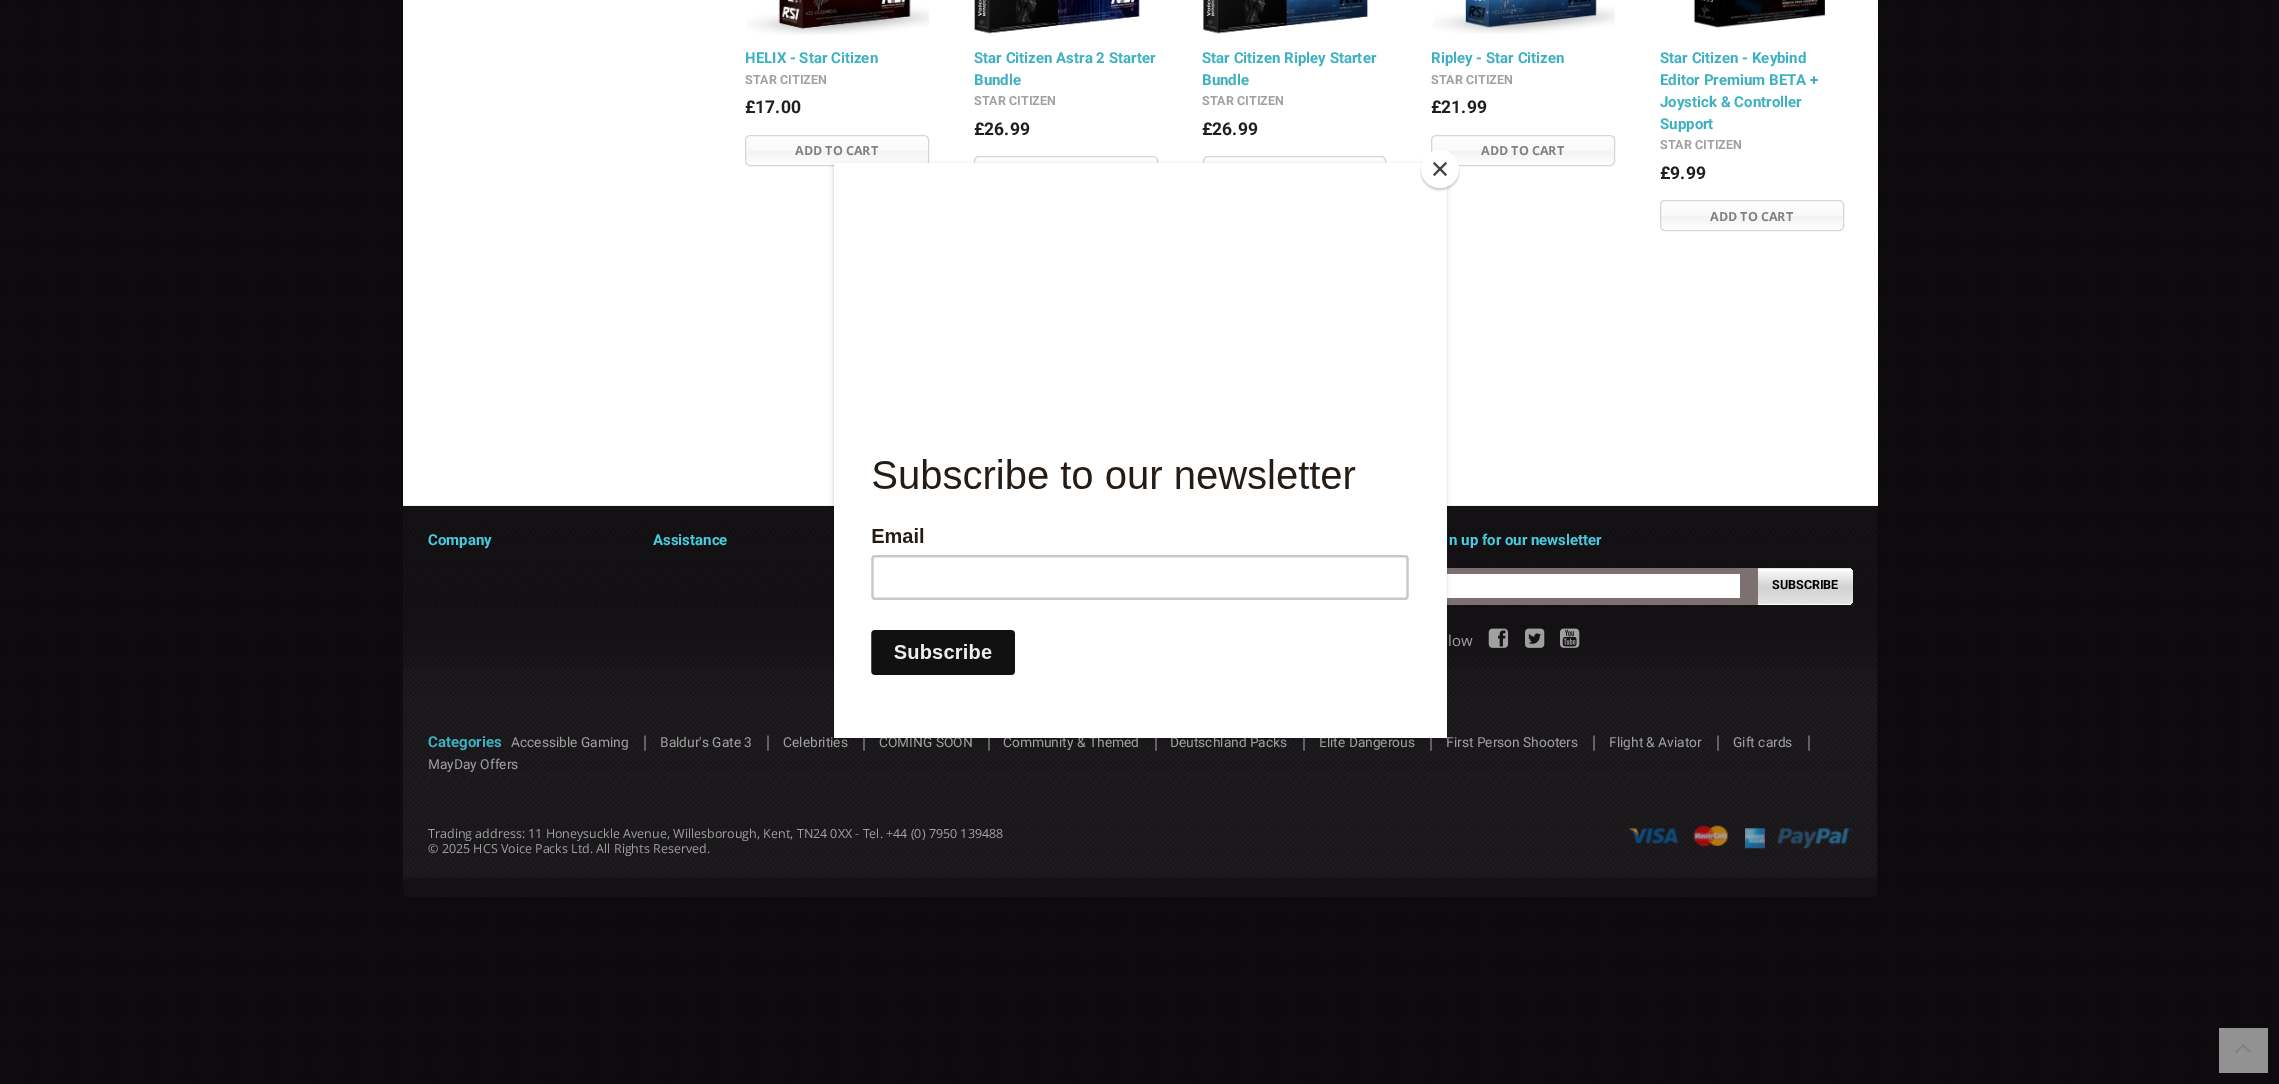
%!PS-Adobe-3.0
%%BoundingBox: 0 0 2279 1084
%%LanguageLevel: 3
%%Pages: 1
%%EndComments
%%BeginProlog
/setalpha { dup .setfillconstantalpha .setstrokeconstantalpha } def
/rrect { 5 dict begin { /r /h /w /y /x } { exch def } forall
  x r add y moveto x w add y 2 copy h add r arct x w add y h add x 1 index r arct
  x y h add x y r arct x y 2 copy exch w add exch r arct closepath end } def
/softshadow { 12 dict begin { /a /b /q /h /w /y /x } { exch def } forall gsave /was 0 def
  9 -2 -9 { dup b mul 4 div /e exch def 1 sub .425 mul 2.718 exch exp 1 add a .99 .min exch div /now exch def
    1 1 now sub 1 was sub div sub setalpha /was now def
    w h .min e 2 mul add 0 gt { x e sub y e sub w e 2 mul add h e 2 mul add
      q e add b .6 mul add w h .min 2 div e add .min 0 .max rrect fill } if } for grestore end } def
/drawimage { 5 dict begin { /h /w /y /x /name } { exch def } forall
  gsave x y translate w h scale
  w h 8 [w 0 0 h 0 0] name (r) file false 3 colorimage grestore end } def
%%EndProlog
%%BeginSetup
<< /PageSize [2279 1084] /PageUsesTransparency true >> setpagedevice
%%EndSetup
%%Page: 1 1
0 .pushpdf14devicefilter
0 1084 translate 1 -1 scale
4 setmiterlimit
1 setgray
0 0 2279 1084 rectfill
(images/1.raw) 0 0 2279 1084 drawimage
403 0 1475 506 rectfill
(images/2.raw) 746 0 183 35 drawimage
gsave
745 135 184 31 5 rrect clip newpath
gsave newpath 745 136 moveto 929 136 lineto 929 165 lineto 745 165 lineto closepath clip newpath
<< /ShadingType 2 /ColorSpace /DeviceRGB /Coords [837 136 837 165] /Extend [true true] /Function << /FunctionType 3 /Domain [0 1] /Functions [<< /FunctionType 2 /Domain [0 1] /C0 [1 1 1] /C1 [0.976 0.976 0.976] /N 1 >> << /FunctionType 2 /Domain [0 1] /C0 [0.976 0.976 0.976] /C1 [0.949 0.949 0.949] /N 1 >> << /FunctionType 2 /Domain [0 1] /C0 [0.949 0.949 0.949] /C1 [1 1 1] /N 1 >>] /Bounds [0.5 0.51] /Encode [0 1 0 1 0 1] >> >> shfill grestore
grestore
0.839 setgray
745.5 135.5 183 30 4.5 rrect stroke
(images/3.raw) 974 0 166 34 drawimage
gsave
974 156 184 32 5 rrect clip newpath
gsave newpath 974 158 moveto 1158 158 lineto 1158 163 lineto 974 163 lineto closepath clip newpath
<< /ShadingType 2 /ColorSpace /DeviceRGB /Coords [1066 157 1066 186] /Extend [true true] /Function << /FunctionType 3 /Domain [0 1] /Functions [<< /FunctionType 2 /Domain [0 1] /C0 [1 1 1] /C1 [0.976 0.976 0.976] /N 1 >> << /FunctionType 2 /Domain [0 1] /C0 [0.976 0.976 0.976] /C1 [0.949 0.949 0.949] /N 1 >> << /FunctionType 2 /Domain [0 1] /C0 [0.949 0.949 0.949] /C1 [1 1 1] /N 1 >>] /Bounds [0.5 0.51] /Encode [0 1 0 1 0 1] >> >> shfill grestore
grestore
974.5 156.5 183 31 4.5 rrect stroke
(images/4.raw) 1203 0 165 34 drawimage
gsave
1203 156 183 32 5 rrect clip newpath
gsave newpath 1203 158 moveto 1386 158 lineto 1386 163 lineto 1203 163 lineto closepath clip newpath
<< /ShadingType 2 /ColorSpace /DeviceRGB /Coords [1294 157 1294 186] /Extend [true true] /Function << /FunctionType 3 /Domain [0 1] /Functions [<< /FunctionType 2 /Domain [0 1] /C0 [1 1 1] /C1 [0.976 0.976 0.976] /N 1 >> << /FunctionType 2 /Domain [0 1] /C0 [0.976 0.976 0.976] /C1 [0.949 0.949 0.949] /N 1 >> << /FunctionType 2 /Domain [0 1] /C0 [0.949 0.949 0.949] /C1 [1 1 1] /N 1 >>] /Bounds [0.5 0.51] /Encode [0 1 0 1 0 1] >> >> shfill grestore
grestore
1203.5 156.5 182 31 4.5 rrect stroke
(images/5.raw) 1433 0 182 34 drawimage
gsave
1431 135 184 31 5 rrect clip newpath
gsave newpath 1431 136 moveto 1615 136 lineto 1615 165 lineto 1431 165 lineto closepath clip newpath
<< /ShadingType 2 /ColorSpace /DeviceRGB /Coords [1523 136 1523 165] /Extend [true true] /Function << /FunctionType 3 /Domain [0 1] /Functions [<< /FunctionType 2 /Domain [0 1] /C0 [1 1 1] /C1 [0.976 0.976 0.976] /N 1 >> << /FunctionType 2 /Domain [0 1] /C0 [0.976 0.976 0.976] /C1 [0.949 0.949 0.949] /N 1 >> << /FunctionType 2 /Domain [0 1] /C0 [0.949 0.949 0.949] /C1 [1 1 1] /N 1 >>] /Bounds [0.5 0.51] /Encode [0 1 0 1 0 1] >> >> shfill grestore
grestore
1431.5 135.5 183 30 4.5 rrect stroke
(images/6.raw) 1693 0 132 28 drawimage
gsave
1660 200 184 31 5 rrect clip newpath
gsave newpath 1660 201 moveto 1844 201 lineto 1844 230 lineto 1660 230 lineto closepath clip newpath
<< /ShadingType 2 /ColorSpace /DeviceRGB /Coords [1752 201 1752 230] /Extend [true true] /Function << /FunctionType 3 /Domain [0 1] /Functions [<< /FunctionType 2 /Domain [0 1] /C0 [1 1 1] /C1 [0.976 0.976 0.976] /N 1 >> << /FunctionType 2 /Domain [0 1] /C0 [0.976 0.976 0.976] /C1 [0.949 0.949 0.949] /N 1 >> << /FunctionType 2 /Domain [0 1] /C0 [0.949 0.949 0.949] /C1 [1 1 1] /N 1 >>] /Bounds [0.5 0.51] /Encode [0 1 0 1 0 1] >> >> shfill grestore
grestore
1660.5 200.5 183 30 4.5 rrect stroke
(images/8.raw) 402 505 1476 392 drawimage
0.49 0.439 0.439 setrgbcolor
1428 568 425 37 5 rrect fill
1 setgray
1447 574 293 24 rectfill
0 setgray
834 165 612 575 0 2.5 0.2 softshadow
gsave
newpath 1758 568 moveto 1847 568 lineto 1850.5 568 1853 570.5 1853 574 curveto 1853 599 lineto 1853 602.5 1850.5 605 1847 605 curveto 1758 605 lineto closepath clip newpath
gsave newpath 1758 568 moveto 1853 568 lineto 1853 569 lineto 1758 569 lineto closepath clip newpath
<< /ShadingType 2 /ColorSpace /DeviceRGB /Coords [1805 534 1805 569] /Extend [true true] /Function << /FunctionType 3 /Domain [0 1] /Functions [<< /FunctionType 2 /Domain [0 1] /C0 [0.996 0.996 0.996] /C1 [0.82 0.82 0.82] /N 1 >> << /FunctionType 2 /Domain [0 1] /C0 [0.82 0.82 0.82] /C1 [0.886 0.886 0.886] /N 1 >>] /Bounds [0.51] /Encode [0 1 0 1] >> >> shfill grestore
gsave newpath 1758 569 moveto 1853 569 lineto 1853 604 lineto 1758 604 lineto closepath clip newpath
<< /ShadingType 2 /ColorSpace /DeviceRGB /Coords [1805 569 1805 604] /Extend [true true] /Function << /FunctionType 3 /Domain [0 1] /Functions [<< /FunctionType 2 /Domain [0 1] /C0 [0.996 0.996 0.996] /C1 [0.82 0.82 0.82] /N 1 >> << /FunctionType 2 /Domain [0 1] /C0 [0.82 0.82 0.82] /C1 [0.886 0.886 0.886] /N 1 >>] /Bounds [0.51] /Encode [0 1 0 1] >> >> shfill grestore
gsave newpath 1758 604 moveto 1853 604 lineto 1853 605 lineto 1758 605 lineto closepath clip newpath
<< /ShadingType 2 /ColorSpace /DeviceRGB /Coords [1805 604 1805 639] /Extend [true true] /Function << /FunctionType 3 /Domain [0 1] /Functions [<< /FunctionType 2 /Domain [0 1] /C0 [0.996 0.996 0.996] /C1 [0.82 0.82 0.82] /N 1 >> << /FunctionType 2 /Domain [0 1] /C0 [0.82 0.82 0.82] /C1 [0.886 0.886 0.886] /N 1 >>] /Bounds [0.51] /Encode [0 1 0 1] >> >> shfill grestore
grestore
(images/9.raw) 1488 628 21 20 drawimage
(images/10.raw) 1525 628 20 20 drawimage
(images/11.raw) 1560 628 20 20 drawimage
(images/12.raw) 1628 828 50 16 drawimage
(images/13.raw) 1693 825 35 21 drawimage
(images/14.raw) 1745 828 20 21 drawimage
(images/15.raw) 1777 828 76 21 drawimage
0.6 setalpha
0.925 setgray
2219 1028 49 45 rectfill
1 setalpha
(images/16.raw) 2235 1044 16 9 drawimage
/Roboto-Bold [15 0 0 -15 0 0] selectfont
0.239 0.69 0.757 setrgbcolor
745 63 moveto (HELIX - Star Citizen) show
/Roboto-Bold [12.5 0 0 -12.5 0 0] selectfont
0.627 setgray
745 84 moveto (STAR CITIZEN) show
/Roboto-Bold [17.5 0 0 -17.5 0 0] selectfont
0.118 setgray
745 113 moveto (£17.00) show
/OpenSans-Bold [12.5 0 0 -12.5 0 0] selectfont
0.506 0.502 0.502 setrgbcolor
795 155 moveto (ADD TO CART) show
/Roboto-Bold [15 0 0 -15 0 0] selectfont
0.239 0.69 0.757 setrgbcolor
974 63 moveto (Star Citizen Astra 2 Starter) show
974 85 moveto (Bundle) show
/Roboto-Bold [12.5 0 0 -12.5 0 0] selectfont
0.627 setgray
974 105 moveto (STAR CITIZEN) show
/Roboto-Bold [17.5 0 0 -17.5 0 0] selectfont
0.118 setgray
974 135 moveto (£26.99) show
/Roboto-Bold [15 0 0 -15 0 0] selectfont
0.239 0.69 0.757 setrgbcolor
1202 63 moveto (Star Citizen Ripley Starter) show
1202 85 moveto (Bundle) show
/Roboto-Bold [12.5 0 0 -12.5 0 0] selectfont
0.627 setgray
1202 105 moveto (STAR CITIZEN) show
/Roboto-Bold [17.5 0 0 -17.5 0 0] selectfont
0.118 setgray
1202 135 moveto (£26.99) show
/Roboto-Bold [15 0 0 -15 0 0] selectfont
0.239 0.69 0.757 setrgbcolor
1431 63 moveto (Ripley - Star Citizen) show
/Roboto-Bold [12.5 0 0 -12.5 0 0] selectfont
0.627 setgray
1431 84 moveto (STAR CITIZEN) show
/Roboto-Bold [17.5 0 0 -17.5 0 0] selectfont
0.118 setgray
1431 113 moveto (£21.99) show
/OpenSans-Bold [12.5 0 0 -12.5 0 0] selectfont
0.506 0.502 0.502 setrgbcolor
1481 155 moveto (ADD TO CART) show
/Roboto-Bold [15 0 0 -15 0 0] selectfont
0.239 0.69 0.757 setrgbcolor
1660 63 moveto (Star Citizen - Keybind) show
1660 85 moveto (Editor Premium BETA +) show
1660 107 moveto (Joystick & Controller) show
1660 129 moveto (Support) show
/Roboto-Bold [12.5 0 0 -12.5 0 0] selectfont
0.627 setgray
1660 149 moveto (STAR CITIZEN) show
/Roboto-Bold [17.5 0 0 -17.5 0 0] selectfont
0.118 setgray
1660 179 moveto (£9.99) show
/OpenSans-Bold [12.5 0 0 -12.5 0 0] selectfont
0.506 0.502 0.502 setrgbcolor
1710 221 moveto (ADD TO CART) show
/Roboto-Bold [15 0 0 -15 0 0] selectfont
0.278 0.796 0.871 setrgbcolor
428 545 moveto (Company) show
653 545 moveto (Assistance) show
1449 545 moveto (n up for our newsletter) show
/Roboto-Bold [12.5 0 0 -12.5 0 0] selectfont
0 setgray
1772 589 moveto (SUBSCRIBE) show
/OpenSans-Regular [15 0 0 -15 0 0] selectfont
0.627 setgray
1448 646 moveto (low) show
/Roboto-Bold [15 0 0 -15 0 0] selectfont
0.239 0.69 0.757 setrgbcolor
428 747 moveto (Categories) show
/Roboto-Regular [13.75 0 0 -13.75 0 0] selectfont
0.627 setgray
511 747 moveto (Accessible Gaming) show
/OpenSans-Regular [15 0 0 -15 0 0] selectfont
641 747 moveto (|) show
/Roboto-Regular [13.75 0 0 -13.75 0 0] selectfont
660 747 moveto (Baldur's Gate 3) show
/OpenSans-Regular [15 0 0 -15 0 0] selectfont
764 747 moveto (|) show
/Roboto-Regular [13.75 0 0 -13.75 0 0] selectfont
783 747 moveto (Celebrities) show
/OpenSans-Regular [15 0 0 -15 0 0] selectfont
860 747 moveto (|) show
/Roboto-Regular [13.75 0 0 -13.75 0 0] selectfont
879 747 moveto (COMING SOON) show
/OpenSans-Regular [15 0 0 -15 0 0] selectfont
985 747 moveto (|) show
/Roboto-Regular [13.75 0 0 -13.75 0 0] selectfont
1003 747 moveto (Community & Themed) show
/OpenSans-Regular [15 0 0 -15 0 0] selectfont
1152 747 moveto (|) show
/Roboto-Regular [13.75 0 0 -13.75 0 0] selectfont
1170 747 moveto (Deutschland Packs) show
/OpenSans-Regular [15 0 0 -15 0 0] selectfont
1300 747 moveto (|) show
/Roboto-Regular [13.75 0 0 -13.75 0 0] selectfont
1319 747 moveto (Elite Dangerous) show
/OpenSans-Regular [15 0 0 -15 0 0] selectfont
1427 747 moveto (|) show
/Roboto-Regular [13.75 0 0 -13.75 0 0] selectfont
1446 747 moveto (First Person Shooters) show
(images/7.raw) 834 163 613 575 drawimage
0 setgray
1421 153 38 37 18.5 1 0.2 softshadow
1 setgray
newpath 1440 169 19 0 360 arc closepath fill
0.255 setgray
newpath 1445.5 162 moveto 1447 163.5 lineto 1434.5 176 lineto 1433 174.5 lineto closepath fill
newpath 1433 163.5 moveto 1434.5 162 lineto 1447 174.5 lineto 1445.5 176 lineto closepath fill
/OpenSans-Regular [15 0 0 -15 0 0] selectfont
0.627 setgray
1590 747 moveto (|) show
/Roboto-Regular [13.75 0 0 -13.75 0 0] selectfont
1609 747 moveto (Flight & Aviator) show
/OpenSans-Regular [15 0 0 -15 0 0] selectfont
1714 747 moveto (|) show
/Roboto-Regular [13.75 0 0 -13.75 0 0] selectfont
1733 747 moveto (Gift cards) show
/OpenSans-Regular [15 0 0 -15 0 0] selectfont
1805 747 moveto (|) show
/Roboto-Regular [13.75 0 0 -13.75 0 0] selectfont
428 769 moveto (MayDay Offers) show
/OpenSans-Regular [12.5 0 0 -12.5 0 0] selectfont
428 838 moveto (Trading address: 11 Honeysuckle Avenue, Willesborough, Kent, TN24 0XX - Tel. +44 \(0\) 7950 139488) show
428 853 moveto (© 2025 HCS Voice Packs Ltd. All Rights Reserved.) show
.poppdf14devicefilter showpage
%%EOF
